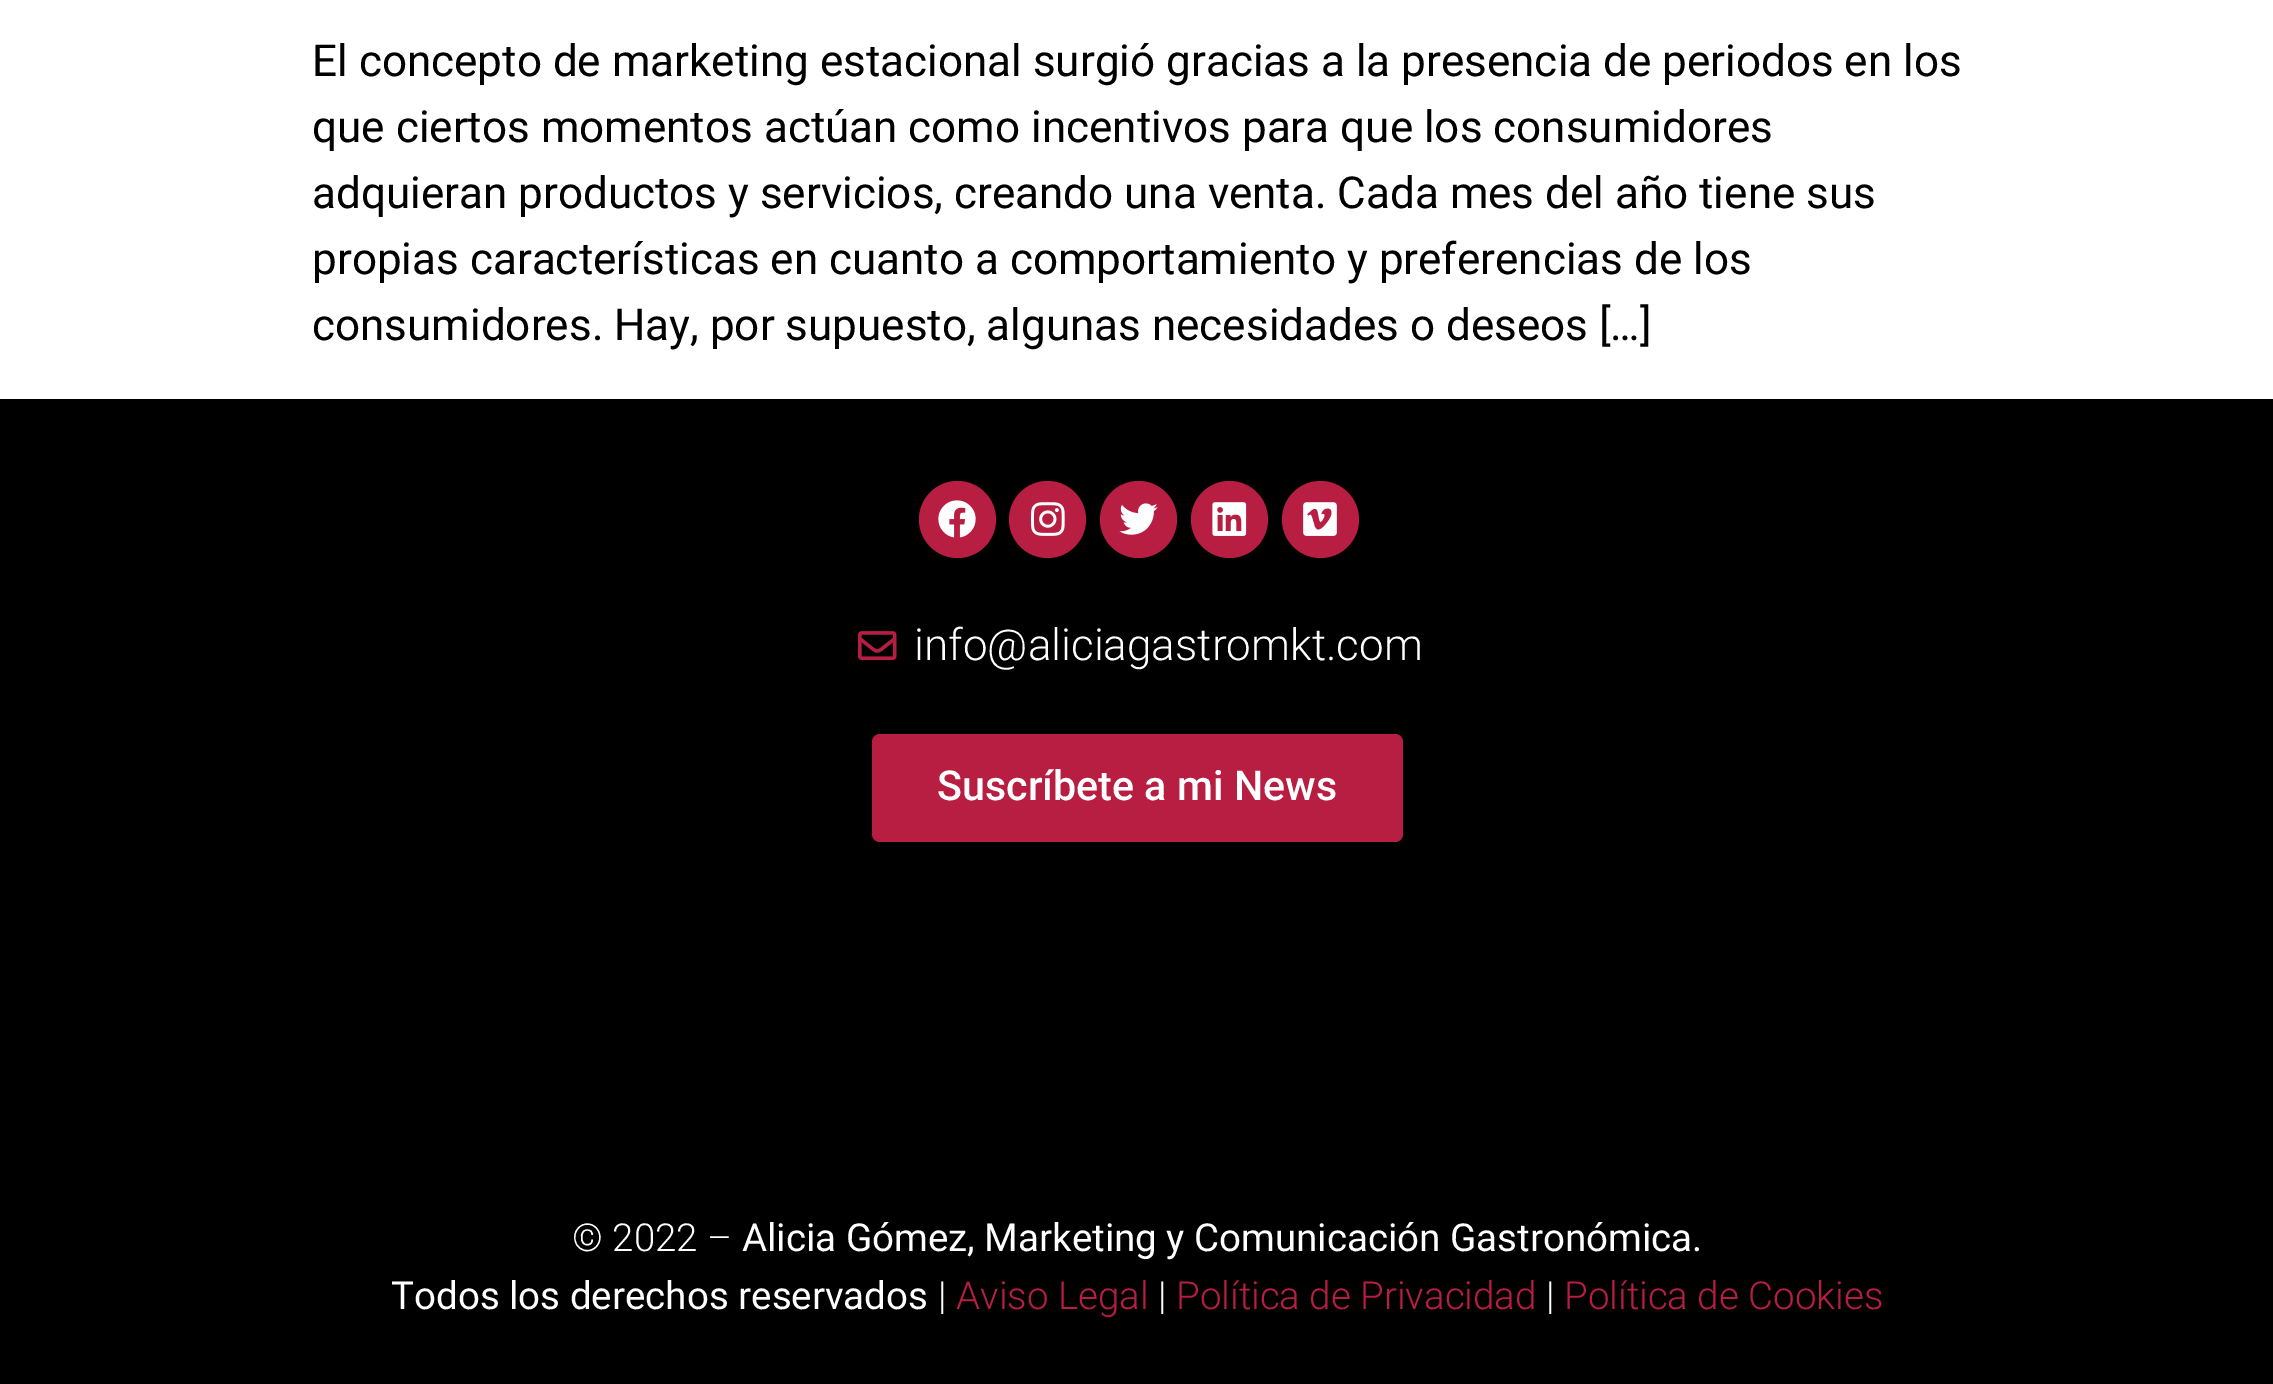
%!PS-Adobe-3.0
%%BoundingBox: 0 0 2273 1384
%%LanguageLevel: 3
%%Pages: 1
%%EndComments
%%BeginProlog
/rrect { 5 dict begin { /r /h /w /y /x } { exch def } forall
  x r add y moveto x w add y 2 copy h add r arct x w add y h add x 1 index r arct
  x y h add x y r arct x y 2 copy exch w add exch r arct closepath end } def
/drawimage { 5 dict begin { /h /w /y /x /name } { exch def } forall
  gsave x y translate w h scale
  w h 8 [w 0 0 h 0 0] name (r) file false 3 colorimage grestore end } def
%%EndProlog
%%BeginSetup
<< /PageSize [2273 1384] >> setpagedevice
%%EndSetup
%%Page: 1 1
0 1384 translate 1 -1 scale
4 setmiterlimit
1 setgray
0 0 2273 1384 rectfill
0 setgray
0 399 2273 985 rectfill
0.718 0.118 0.259 setrgbcolor
newpath 957.5 519.5 38.5 0 360 arc closepath fill
(images/1.raw) 938 500 38 38 drawimage
newpath 1047.5 519.5 38.5 0 360 arc closepath fill
(images/2.raw) 1031 502 34 34 drawimage
newpath 1138.5 519.5 38.5 0 360 arc closepath fill
(images/3.raw) 1119 503 39 32 drawimage
newpath 1229.5 519.5 38.5 0 360 arc closepath fill
(images/4.raw) 1212 502 35 34 drawimage
newpath 1320.5 519.5 38.5 0 360 arc closepath fill
(images/5.raw) 1303 502 34 34 drawimage
(images/6.raw) 858 631 39 29 drawimage
872 734 531 108 8 rrect fill
/Roboto-Regular [44 0 0 -44 0 0] selectfont
0 setgray
312 76 moveto (El concepto de marketing estacional surgió gracias a la presencia de periodos en los) show
312 142 moveto (que ciertos momentos actúan como incentivos para que los consumidores) show
312 208 moveto (adquieran productos y servicios, creando una venta. Cada mes del año tiene sus) show
312 274 moveto (propias características en cuanto a comportamiento y preferencias de los) show
312 340 moveto (consumidores. Hay, por supuesto, algunas necesidades o deseos […]) show
/Roboto-Light [44 0 0 -44 0 0] selectfont
1 setgray
914 660 moveto (info@aliciagastromkt.com) show
/Roboto-Medium [41.25 0 0 -41.25 0 0] selectfont
937 800 moveto (Suscríbete a mi News) show
/Roboto-Light [38.5 0 0 -38.5 0 0] selectfont
572 1251 moveto (© 2022 –) show
/Roboto-Regular [38.5 0 0 -38.5 0 0] selectfont
742 1251 moveto (Alicia Gómez, Marketing y Comunicación Gastronómica.) show
391 1309 moveto (Todos los derechos reservados) show
/Roboto-Light [38.5 0 0 -38.5 0 0] selectfont
938 1309 moveto (|) show
0.718 0.118 0.259 setrgbcolor
956 1309 moveto (Aviso Legal) show
1 setgray
1158 1309 moveto (|) show
0.718 0.118 0.259 setrgbcolor
1176 1309 moveto (Política de Privacidad) show
1 setgray
1546 1309 moveto (|) show
0.718 0.118 0.259 setrgbcolor
1564 1309 moveto (Política de Cookies) show
showpage
%%EOF
